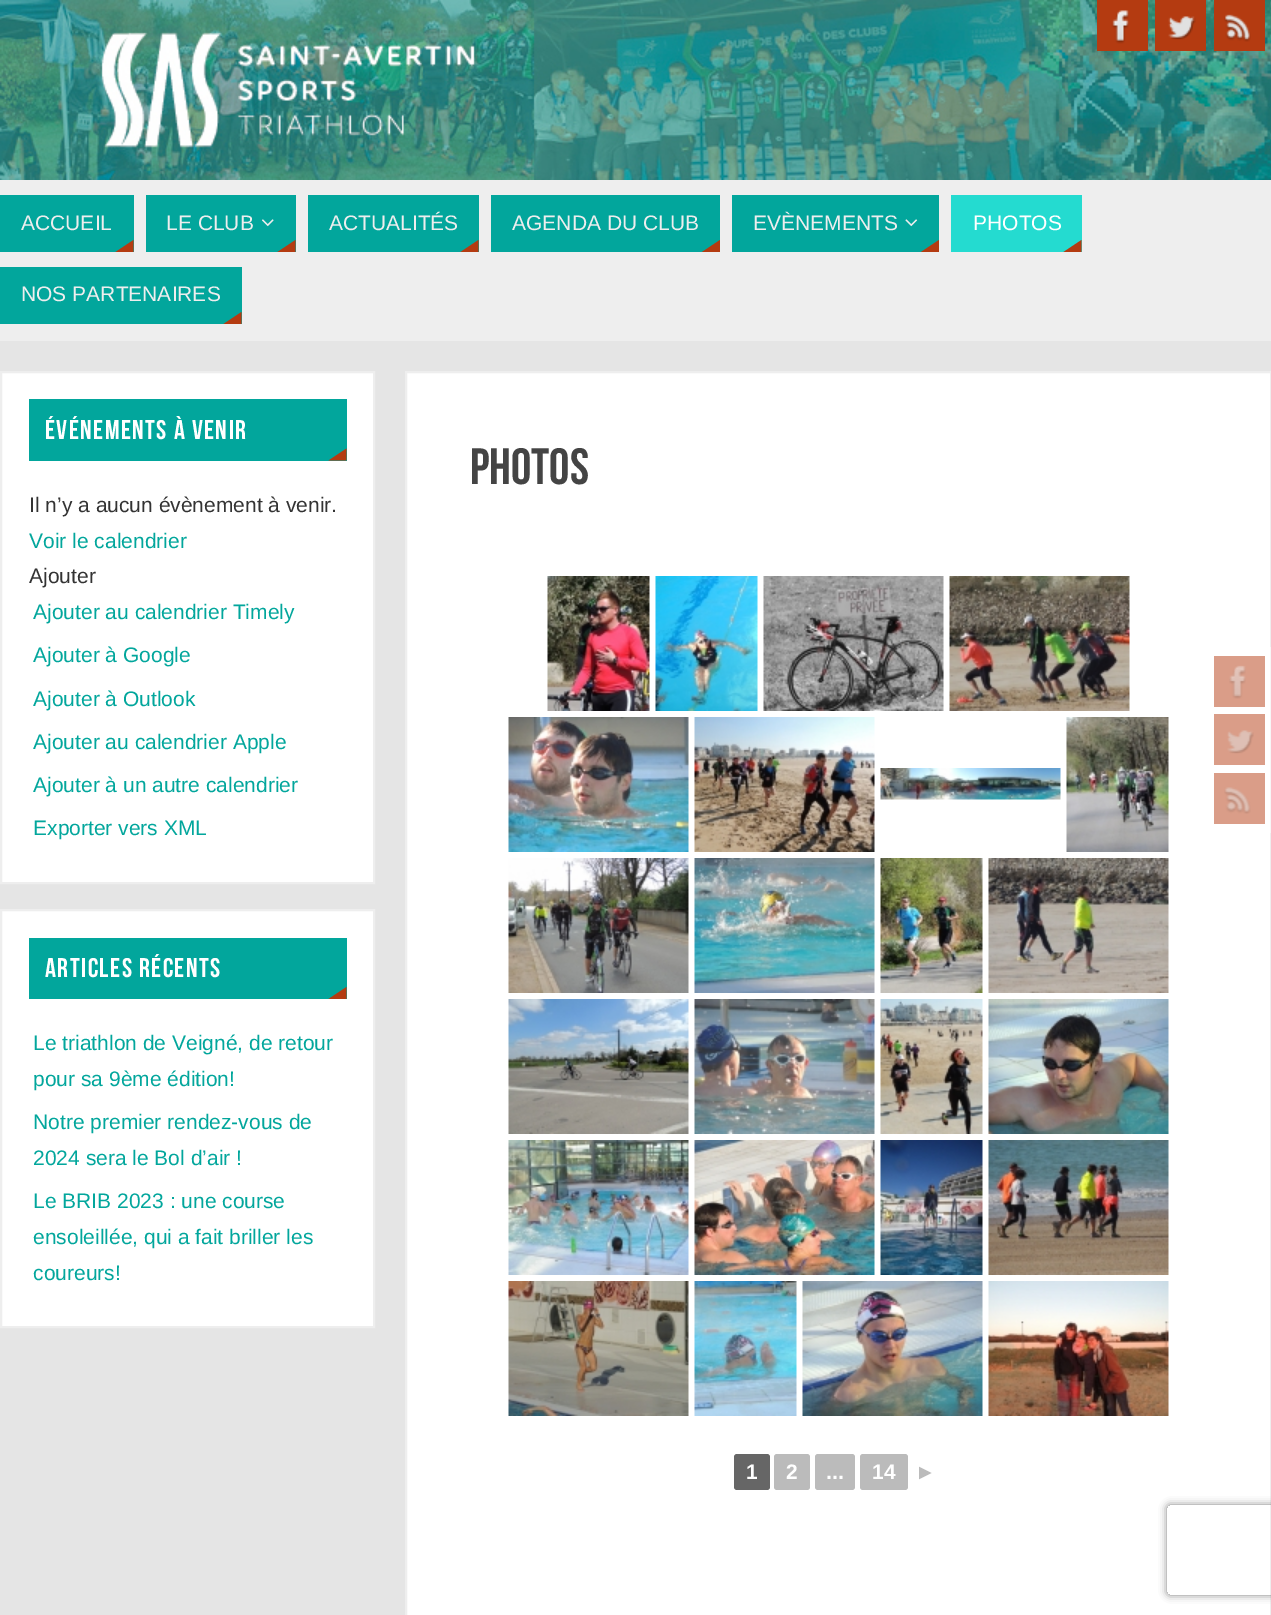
%!PS-Adobe-3.0
%%BoundingBox: 0 0 1271 1615
%%LanguageLevel: 3
%%Pages: 1
%%EndComments
%%BeginProlog
/setalpha { dup .setfillconstantalpha .setstrokeconstantalpha } def
/rrect { 5 dict begin { /r /h /w /y /x } { exch def } forall
  x r add y moveto x w add y 2 copy h add r arct x w add y h add x 1 index r arct
  x y h add x y r arct x y 2 copy exch w add exch r arct closepath end } def
/softshadow { 12 dict begin { /a /b /q /h /w /y /x } { exch def } forall gsave /was 0 def
  9 -2 -9 { dup b mul 4 div /e exch def 1 sub .425 mul 2.718 exch exp 1 add a .99 .min exch div /now exch def
    1 1 now sub 1 was sub div sub setalpha /was now def
    w h .min e 2 mul add 0 gt { x e sub y e sub w e 2 mul add h e 2 mul add
      q e add b .6 mul add w h .min 2 div e add .min 0 .max rrect fill } if } for grestore end } def
/drawimage { 5 dict begin { /h /w /y /x /name } { exch def } forall
  gsave x y translate w h scale
  w h 8 [w 0 0 h 0 0] name (r) file false 3 colorimage grestore end } def
%%EndProlog
%%BeginSetup
<< /PageSize [1271 1615] /PageUsesTransparency true >> setpagedevice
%%EndSetup
%%Page: 1 1
0 .pushpdf14devicefilter
0 1615 translate 1 -1 scale
4 setmiterlimit
0.898 setgray
0 0 1271 1615 rectfill
0.933 setgray
0 180 1271 161 rectfill
(images/1.raw) 0 0 1271 180 drawimage
0.706 0.231 0.067 setrgbcolor
1097 0 51 51 rectfill
(images/2.raw) 1111 10 18 34 drawimage
1155 0 51 51 rectfill
(images/3.raw) 1168 16 28 24 drawimage
1214 0 51 51 rectfill
(images/4.raw) 1224 14 27 28 drawimage
0.008 0.651 0.612 setrgbcolor
0 195 134 57 rectfill
0.706 0.231 0.067 setrgbcolor
newpath 133.5 252 moveto 115.5 252 lineto 133.5 240 lineto closepath fill
0.008 0.651 0.612 setrgbcolor
146 195 150 57 rectfill
(images/5.raw) 262 219 12 8 drawimage
0.706 0.231 0.067 setrgbcolor
newpath 295.5 252 moveto 277.5 252 lineto 295.5 240 lineto closepath fill
0.008 0.651 0.612 setrgbcolor
308 195 171 57 rectfill
0.706 0.231 0.067 setrgbcolor
newpath 478.5 252 moveto 460.5 252 lineto 478.5 240 lineto closepath fill
0.008 0.651 0.612 setrgbcolor
491 195 229 57 rectfill
0.706 0.231 0.067 setrgbcolor
newpath 720 252 moveto 702 252 lineto 720 240 lineto closepath fill
0.008 0.651 0.612 setrgbcolor
732 195 207 57 rectfill
(images/6.raw) 905 219 13 8 drawimage
0.706 0.231 0.067 setrgbcolor
newpath 939 252 moveto 921 252 lineto 939 240 lineto closepath fill
0.141 0.859 0.816 setrgbcolor
951 195 131 57 rectfill
0.706 0.231 0.067 setrgbcolor
newpath 1081.5 252 moveto 1063.5 252 lineto 1081.5 240 lineto closepath fill
0.008 0.651 0.612 setrgbcolor
0 267 242 57 rectfill
0.706 0.231 0.067 setrgbcolor
newpath 241.5 324 moveto 223.5 324 lineto 241.5 312 lineto closepath fill
1 setgray
newpath 1 372 moveto 374 372 lineto 374 883 lineto 1 883 lineto closepath gsave fill grestore
0.933 setgray
2 setlinewidth
stroke
0.008 0.651 0.612 setrgbcolor
29 399 318 62 rectfill
0.706 0.231 0.067 setrgbcolor
newpath 346.5 460.5 moveto 328.5 460.5 lineto 346.5 448.5 lineto closepath fill
1 setgray
newpath 1 910 moveto 374 910 lineto 374 1327 lineto 1 1327 lineto closepath gsave fill grestore
0.933 setgray
stroke
0.008 0.651 0.612 setrgbcolor
29 938 318 61 rectfill
0.706 0.231 0.067 setrgbcolor
newpath 346.5 999 moveto 328.5 999 lineto 346.5 987 lineto closepath fill
1 setgray
newpath 406 372 moveto 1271 372 lineto 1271 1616 lineto 406 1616 lineto closepath gsave fill grestore
0.933 setgray
stroke
(images/7.raw) 547 576 103 135 drawimage
(images/8.raw) 655 576 103 135 drawimage
(images/9.raw) 763 576 181 135 drawimage
(images/10.raw) 949 576 181 135 drawimage
(images/11.raw) 508 717 181 135 drawimage
(images/12.raw) 694 717 181 135 drawimage
(images/13.raw) 880 768 181 32 drawimage
(images/14.raw) 1066 717 103 135 drawimage
(images/15.raw) 508 858 181 135 drawimage
(images/16.raw) 694 858 181 135 drawimage
(images/17.raw) 880 858 103 135 drawimage
(images/18.raw) 988 858 181 135 drawimage
(images/19.raw) 508 999 181 135 drawimage
(images/20.raw) 694 999 181 135 drawimage
(images/21.raw) 880 999 103 135 drawimage
(images/22.raw) 988 999 181 135 drawimage
(images/23.raw) 508 1140 181 135 drawimage
(images/24.raw) 694 1140 181 135 drawimage
(images/25.raw) 880 1140 103 135 drawimage
(images/26.raw) 988 1140 181 135 drawimage
(images/27.raw) 508 1281 181 135 drawimage
(images/28.raw) 694 1281 103 135 drawimage
(images/29.raw) 802 1281 181 135 drawimage
(images/30.raw) 988 1281 181 135 drawimage
0.4 setgray
734 1454 36 36 3 rrect fill
0.733 setgray
774 1454 36 36 3 rrect fill
815 1454 40 36 3 rrect fill
860 1454 48 36 3 rrect fill
0.5 setalpha
1 setgray
1270 647 1 186 rectfill
1 setalpha
0.855 0.616 0.533 setrgbcolor
1214 656 51 51 rectfill
(images/31.raw) 1229 665 17 34 drawimage
1214 714 51 51 rectfill
(images/32.raw) 1227 730 27 24 drawimage
1214 773 51 51 rectfill
(images/33.raw) 1224 787 27 27 drawimage
gsave
newpath 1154 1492 moveto 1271 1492 lineto 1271 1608 lineto 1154 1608 lineto closepath 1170 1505 moveto 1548 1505 lineto 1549.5 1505 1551 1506.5 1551 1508 curveto 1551 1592 lineto 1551 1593.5 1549.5 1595 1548 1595 curveto 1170 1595 lineto 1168.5 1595 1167 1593.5 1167 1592 curveto 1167 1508 lineto 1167 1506.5 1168.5 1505 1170 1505 curveto closepath eoclip newpath
0.502 setgray
1167 1505 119 90 3 4 1 softshadow
grestore
/LiberationSans-Regular [21 0 0 -21 0 0] selectfont
0.933 setgray
21 230 moveto (ACCUEIL) show
166 230 moveto (LE CLUB) show
329 230 moveto (ACTUALITÉS) show
512 230 moveto (AGENDA DU CLUB) show
753 230 moveto (EVÈNEMENTS) show
1 setgray
973 230 moveto (PHOTOS) show
0.933 setgray
21 301 moveto (NOS PARTENAIRES) show
/BebasNeue-Regular [27 0 0 -27 0 0] selectfont
1 setgray
45 439 moveto 1.5 0 (ÉVÉNEMENTS À VENIR) ashow
/LiberationSans-Regular [21 0 0 -21 0 0] selectfont
0.2 setgray
29 512 moveto (Il n’y a aucun évènement à venir.) show
0.008 0.651 0.612 setrgbcolor
29 548 moveto (Voir le calendrier) show
0.2 setgray
29 583 moveto (Ajouter) show
0.008 0.651 0.612 setrgbcolor
33 619 moveto (Ajouter au calendrier Timely) show
33 662 moveto (Ajouter à Google) show
33 706 moveto (Ajouter à Outlook) show
33 749 moveto (Ajouter au calendrier Apple) show
33 792 moveto (Ajouter à un autre calendrier) show
33 835 moveto (Exporter vers XML) show
/BebasNeue-Regular [27 0 0 -27 0 0] selectfont
1 setgray
45 977 moveto 1.5 0 (ARTICLES RÉCENTS) ashow
/LiberationSans-Regular [21 0 0 -21 0 0] selectfont
0.008 0.651 0.612 setrgbcolor
33 1050 moveto (Le triathlon de Veigné, de retour) show
33 1086 moveto (pour sa 9ème édition!) show
33 1129 moveto (Notre premier rendez-vous de) show
33 1165 moveto (2024 sera le Bol d’air !) show
33 1208 moveto (Le BRIB 2023 : une course) show
33 1244 moveto (ensoleillée, qui a fait briller les) show
33 1280 moveto (coureurs!) show
/BebasNeue-Regular [51 0 0 -51 0 0] selectfont
0.267 setgray
470 484 moveto (Photos) show
/LiberationSans-Bold [21 0 0 -21 0 0] selectfont
1 setgray
746 1479 moveto (1) show
786 1479 moveto (2) show
826 1479 moveto (...) show
872 1479 moveto (14) show
0.733 setgray
915 1479 moveto (►) show
.poppdf14devicefilter showpage
%%EOF
